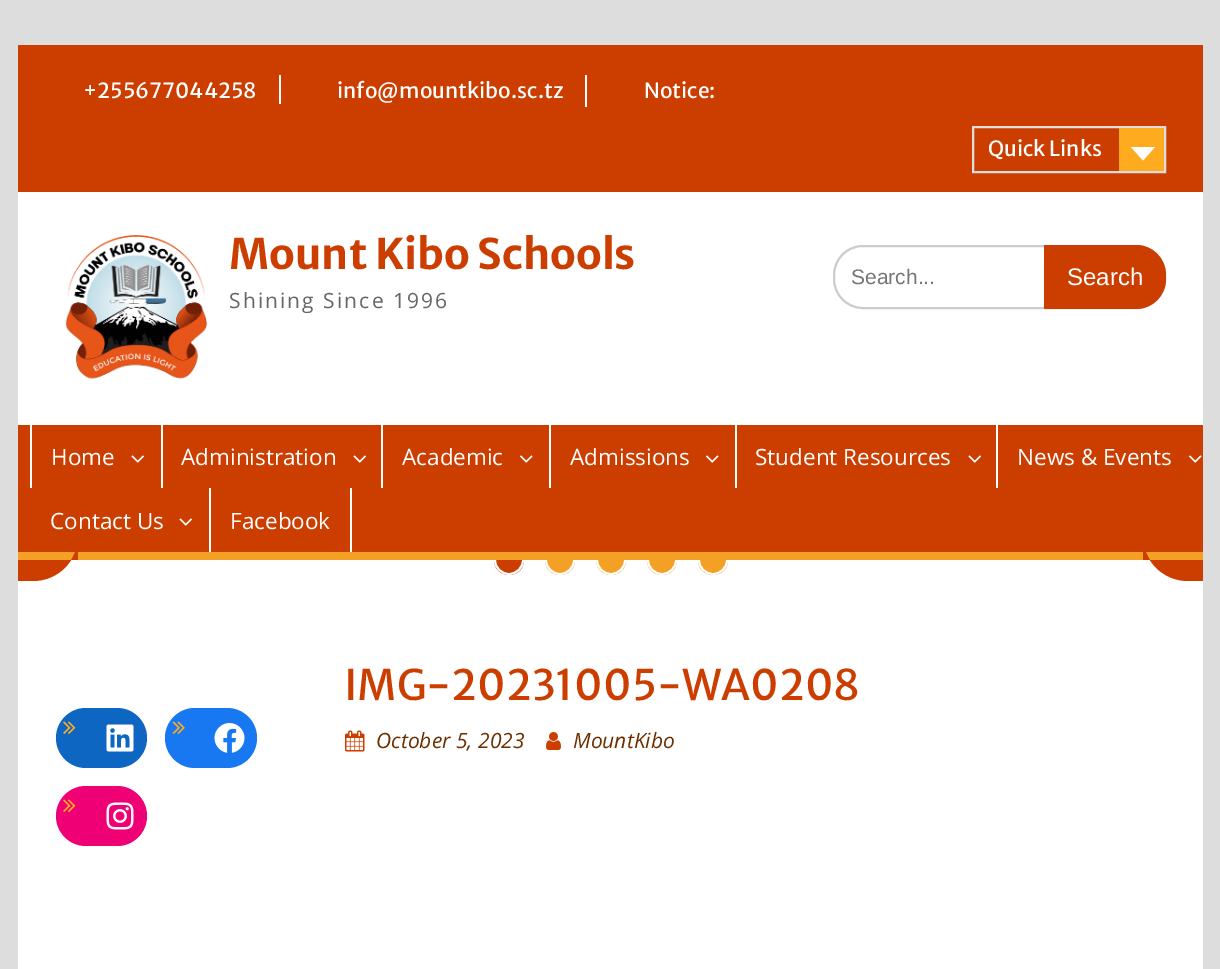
%!PS-Adobe-3.0
%%BoundingBox: 0 0 1220 969
%%LanguageLevel: 3
%%Pages: 1
%%EndComments
%%BeginProlog
/rrect { 5 dict begin { /r /h /w /y /x } { exch def } forall
  x r add y moveto x w add y 2 copy h add r arct x w add y h add x 1 index r arct
  x y h add x y r arct x y 2 copy exch w add exch r arct closepath end } def
/drawimage { 5 dict begin { /h /w /y /x /name } { exch def } forall
  gsave x y translate w h scale
  w h 8 [w 0 0 h 0 0] name (r) file false 3 colorimage grestore end } def
%%EndProlog
%%BeginSetup
<< /PageSize [1220 969] >> setpagedevice
%%EndSetup
%%Page: 1 1
0 969 translate 1 -1 scale
4 setmiterlimit
0.867 setgray
0 0 1220 969 rectfill
1 setgray
18 192 1185 777 rectfill
0.8 0.239 0 setrgbcolor
18 45 1185 147 rectfill
1 setgray
279 75 2 29 rectfill
585 75 2 32 rectfill
0.867 setgray
2 setlinewidth
973 127 192 45 rectstroke
1 0.671 0.122 setrgbcolor
1119 128 45 43 rectfill
1 setgray
newpath 1131 147 moveto 1155 147 lineto 1143 160.5 lineto closepath fill
(images/1.raw) 65 235 142 144 drawimage
0.8 setgray
834 246 331 62 29 rrect stroke
0.8 0.239 0 setrgbcolor
newpath 1044 245 moveto 1136 245 lineto 1152.5 245 1166 258.5 1166 275 curveto 1166 279 lineto 1166 295.5 1152.5 309 1136 309 curveto 1044 309 lineto closepath fill
18 425 1185 127 rectfill
0.957 0.627 0.141 setrgbcolor
18 552 1185 8 rectfill
1 setgray
161 425 2 63 rectfill
30 425 2 63 rectfill
(images/2.raw) 131 455 13 8 drawimage
381 425 2 63 rectfill
(images/2.raw) 353 455 13 8 drawimage
549 425 2 63 rectfill
(images/3.raw) 520 455 13 8 drawimage
735 425 2 63 rectfill
(images/3.raw) 706 455 13 8 drawimage
996 425 2 63 rectfill
(images/2.raw) 968 455 13 8 drawimage
(images/3.raw) 1189 455 13 8 drawimage
209 488 2 64 rectfill
(images/2.raw) 179 518 13 8 drawimage
350 488 2 64 rectfill
0.8 0.239 0 setrgbcolor
newpath 18 560 moveto 78 560 lineto 78 536 lineto 78 561 58 581 33 581 curveto 18 581 lineto closepath fill
newpath 494 560 moveto 524 560 lineto 524 568.5 517.5 575 509 575 curveto 500.5 575 494 568.5 494 560 curveto closepath fill
gsave
18 560 1185 34 rectclip
1 setgray
newpath 509 560 14 0 360 arc closepath stroke
grestore
0.957 0.627 0.141 setrgbcolor
newpath 545 560 moveto 575 560 lineto 575 568.5 568.5 575 560 575 curveto 551.5 575 545 568.5 545 560 curveto closepath fill
gsave
18 560 1185 34 rectclip
1 setgray
newpath 560 560 14 0 360 arc closepath stroke
grestore
newpath 596 560 moveto 626 560 lineto 626 568.5 619.5 575 611 575 curveto 602.5 575 596 568.5 596 560 curveto closepath fill
gsave
18 560 1185 34 rectclip
1 setgray
newpath 611 560 14 0 360 arc closepath stroke
grestore
newpath 647 560 moveto 677 560 lineto 677 568.5 670.5 575 662 575 curveto 653.5 575 647 568.5 647 560 curveto closepath fill
gsave
18 560 1185 34 rectclip
1 setgray
newpath 662 560 14 0 360 arc closepath stroke
grestore
newpath 698 560 moveto 728 560 lineto 728 568.5 721.5 575 713 575 curveto 704.5 575 698 568.5 698 560 curveto closepath fill
gsave
18 560 1185 34 rectclip
1 setgray
newpath 713 560 14 0 360 arc closepath stroke
grestore
0.8 0.239 0 setrgbcolor
newpath 1143 560 moveto 1203 560 lineto 1203 581 lineto 1188 581 lineto 1163 581 1143 561 1143 536 curveto closepath fill
0.051 0.4 0.761 setrgbcolor
56 708 91 60 30 rrect fill
(images/4.raw) 63 721 13 13 drawimage
(images/5.raw) 106 724 28 28 drawimage
0.09 0.471 0.949 setrgbcolor
165 708 92 60 30 rrect fill
(images/6.raw) 172 721 13 13 drawimage
(images/7.raw) 214 723 31 30 drawimage
0.941 0 0.459 setrgbcolor
56 786 91 60 30 rrect fill
(images/8.raw) 63 799 13 13 drawimage
(images/9.raw) 106 802 28 28 drawimage
(images/10.raw) 345 730 20 22 drawimage
(images/11.raw) 546 732 15 18 drawimage
/MerriweatherSans-Regular [21 0 0 -21 0 0] selectfont
1 setgray
83 98 moveto (+255677044258) show
337 98 moveto (info@mountkibo.sc.tz) show
644 98 moveto (Notice:) show
988 156 moveto (Quick Links) show
/MerriweatherSans-Bold [42 0 0 -42 0 0] selectfont
0.8 0.239 0 setrgbcolor
229 269 moveto (Mount Kibo Schools) show
/OpenSans-Regular [21 0 0 -21 0 0] selectfont
0.4 setgray
229 308 moveto 2.1 0 (Shining Since 1996) ashow
/LiberationSans-Regular [21 0 0 -21 0 0] selectfont
0.459 setgray
851 284 moveto (Search...) show
/LiberationSans-Regular [24 0 0 -24 0 0] selectfont
1 setgray
1067 285 moveto (Search) show
/OpenSans-Regular [22.5 0 0 -22.5 0 0] selectfont
51 465 moveto (Home) show
181 465 moveto (Administration) show
402 465 moveto (Academic) show
570 465 moveto (Admissions) show
755 465 moveto (Student Resources) show
1017 465 moveto (News & Events) show
50 529 moveto (Contact Us) show
230 529 moveto (Facebook) show
/MerriweatherSans-Regular [42 0 0 -42 0 0] selectfont
0.8 0.239 0 setrgbcolor
344 700 moveto (IMG-20231005-WA0208) show
/OpenSans-Italic [21 0 0 -21 0 0] selectfont
0.427 0.184 0 setrgbcolor
376 748 moveto (October 5, 2023) show
573 748 moveto (MountKibo) show
showpage
%%EOF
